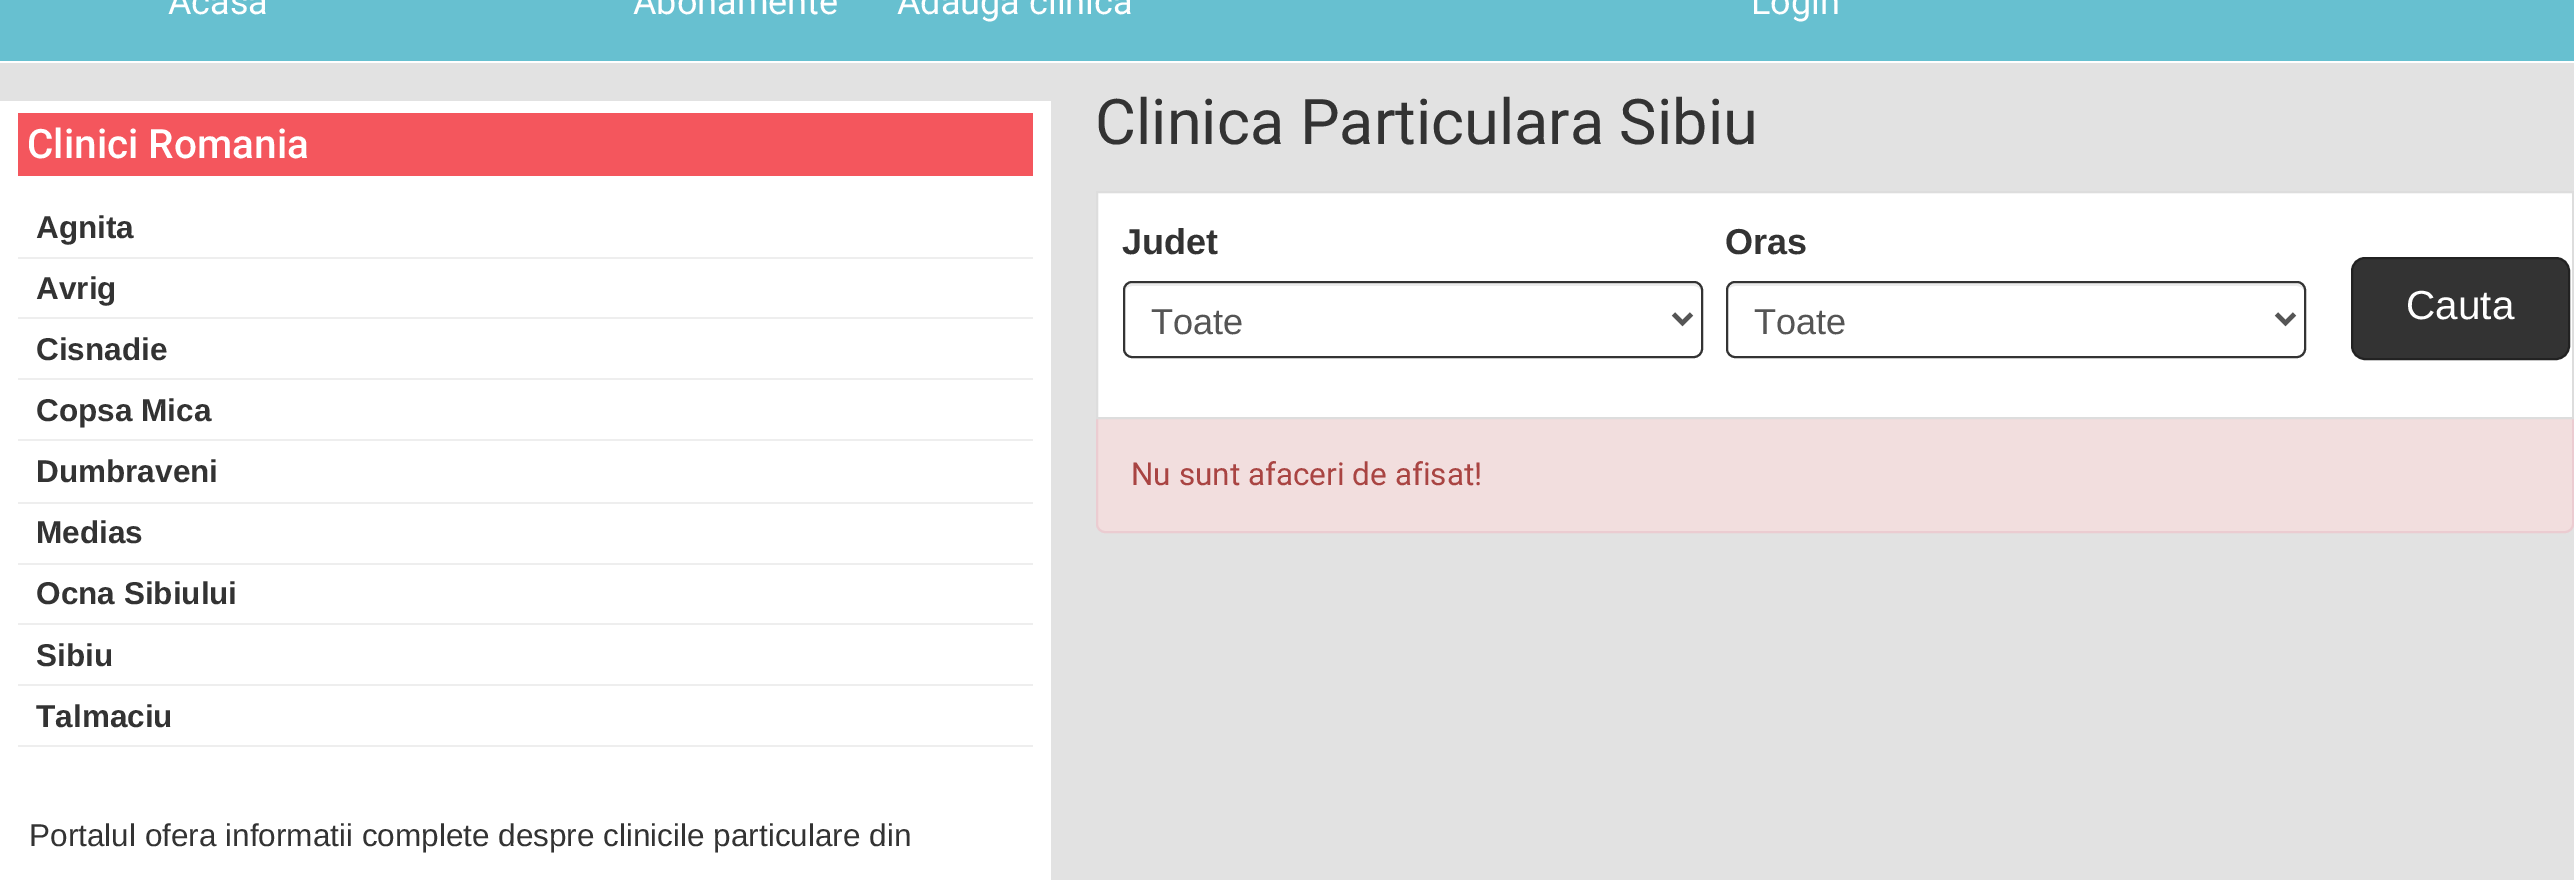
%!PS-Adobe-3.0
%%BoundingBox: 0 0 2574 880
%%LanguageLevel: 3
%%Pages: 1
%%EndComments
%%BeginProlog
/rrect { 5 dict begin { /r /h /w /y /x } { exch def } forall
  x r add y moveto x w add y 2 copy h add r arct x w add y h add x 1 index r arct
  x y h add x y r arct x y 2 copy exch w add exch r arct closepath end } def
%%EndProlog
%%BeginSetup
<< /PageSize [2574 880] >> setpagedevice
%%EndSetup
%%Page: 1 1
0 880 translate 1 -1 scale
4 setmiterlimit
0.404 0.753 0.816 setrgbcolor
0 0 2574 880 rectfill
0.886 setgray
0 63 2574 817 rectfill
1 setgray
0 61 2574 2 rectfill
0 101 1051 779 rectfill
0.957 0.337 0.365 setrgbcolor
18 113 1015 63 rectfill
0.933 setgray
18 257 1015 2 rectfill
18 317 1015 2 rectfill
18 378 1015 2 rectfill
18 439 1015 2 rectfill
18 502 1015 2 rectfill
18 563 1015 2 rectfill
18 623 1015 2 rectfill
18 684 1015 2 rectfill
18 745 1015 2 rectfill
0.949 0.871 0.871 setrgbcolor
1097 192 1476 340 8 rrect gsave fill grestore
0.922 0.8 0.82 setrgbcolor
2 setlinewidth
stroke
1 setgray
newpath 1097 192 moveto 2573 192 lineto 2573 418 lineto 1097 418 lineto closepath gsave fill grestore
0.867 setgray
stroke
0.925 setgray
newpath 1132 286 moveto 1694 286 lineto 1698 286 1701 289 1701 292 curveto 1701 288 1699 284 1694 284 curveto 1132 284 lineto 1127 284 1125 288 1125 292 curveto 1125 289 1128 286 1132 286 curveto closepath fill
0.2 setgray
1124 282 578 75 8 rrect stroke
0.333 setgray
4.5 setlinewidth
newpath 1673.5 314 moveto 1682.5 323 lineto 1691.5 314 lineto stroke
0.925 setgray
newpath 1735 286 moveto 2297 286 lineto 2301 286 2304 289 2304 292 curveto 2304 288 2302 284 2297 284 curveto 1735 284 lineto 1730 284 1728 288 1728 292 curveto 1728 289 1731 286 1735 286 curveto closepath fill
0.2 setgray
2 setlinewidth
1727 282 578 75 8 rrect stroke
0.333 setgray
4.5 setlinewidth
newpath 2276.5 314 moveto 2285.5 323 lineto 2294.5 314 lineto stroke
0.2 setgray
2352 258 217 101 13 rrect gsave fill grestore
0.133 setgray
2 setlinewidth
stroke
/Roboto-Regular [36 0 0 -36 0 0] selectfont
1 setgray
168 14 moveto (Acasa) show
633 14 moveto (Abonamente) show
897 14 moveto (Adauga clinica) show
1751 14 moveto (Login) show
/Roboto-Medium [40.5 0 0 -40.5 0 0] selectfont
27 158 moveto (Clinici Romania) show
/LiberationSans-Bold [31.5 0 0 -31.5 0 0] selectfont
0.2 setgray
36 238 moveto (Agnita) show
36 299 moveto (Avrig) show
36 360 moveto (Cisnadie) show
36 421 moveto (Copsa Mica) show
36 482 moveto (Dumbraveni) show
36 543 moveto (Medias) show
36 604 moveto (Ocna Sibiului) show
36 666 moveto (Sibiu) show
36 727 moveto (Talmaciu) show
/LiberationSans-Regular [31.5 0 0 -31.5 0 0] selectfont
29 846 moveto (Portalul ofera informatii complete despre clinicile particulare din) show
/Roboto-Regular [63 0 0 -63 0 0] selectfont
1095 144 moveto (Clinica Particulara Sibiu) show
/LiberationSans-Bold [36 0 0 -36 0 0] selectfont
1122 254 moveto (Judet) show
/LiberationSans-Regular [36 0 0 -36 0 0] selectfont
0.333 setgray
1151 334 moveto (Toate) show
/LiberationSans-Bold [36 0 0 -36 0 0] selectfont
0.2 setgray
1725 254 moveto (Oras) show
/LiberationSans-Regular [36 0 0 -36 0 0] selectfont
0.333 setgray
1754 334 moveto (Toate) show
/LiberationSans-Regular [40.5 0 0 -40.5 0 0] selectfont
1 setgray
2406 319 moveto (Cauta) show
/Roboto-Regular [31.5 0 0 -31.5 0 0] selectfont
0.663 0.267 0.259 setrgbcolor
1131 485 moveto (Nu sunt afaceri de afisat!) show
showpage
%%EOF
